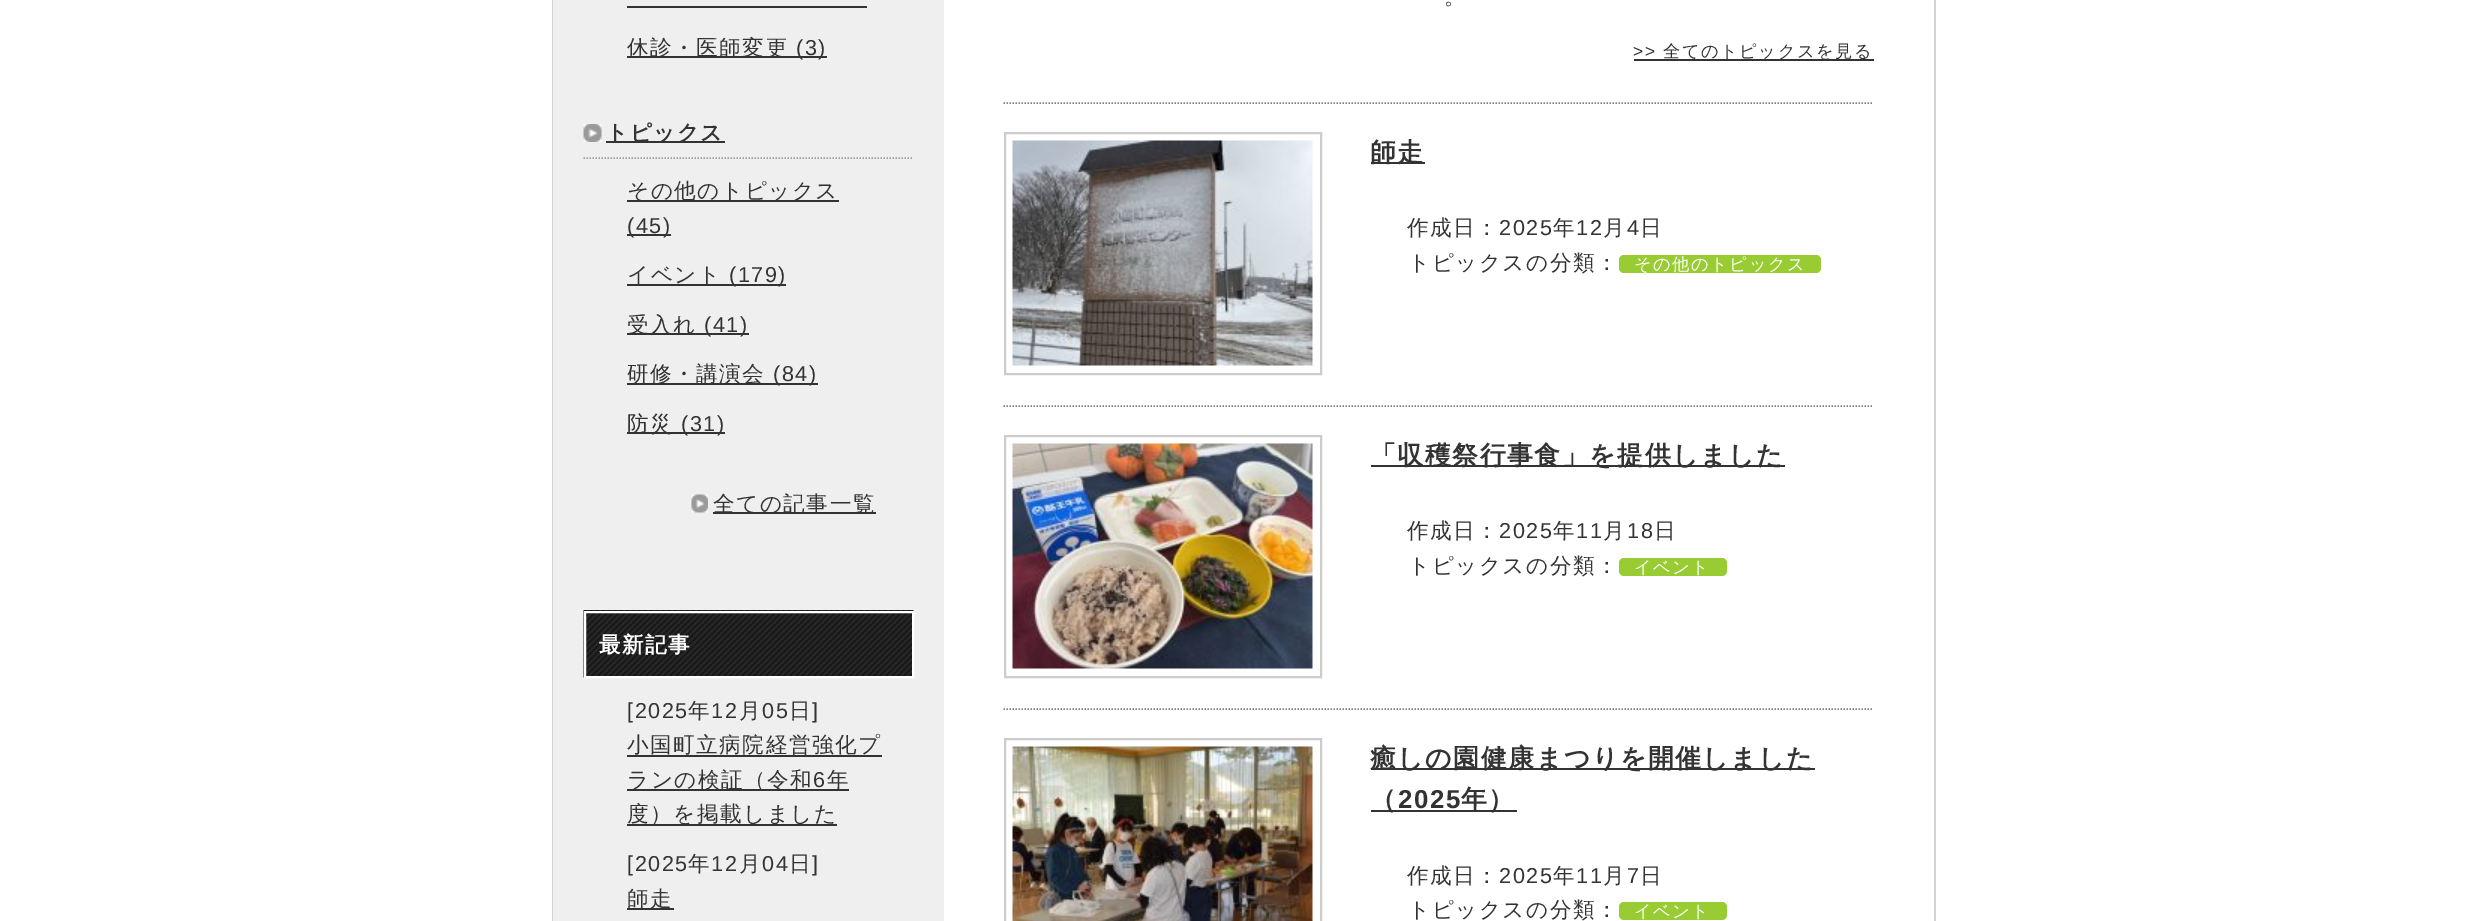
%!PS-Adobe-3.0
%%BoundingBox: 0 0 2485 921
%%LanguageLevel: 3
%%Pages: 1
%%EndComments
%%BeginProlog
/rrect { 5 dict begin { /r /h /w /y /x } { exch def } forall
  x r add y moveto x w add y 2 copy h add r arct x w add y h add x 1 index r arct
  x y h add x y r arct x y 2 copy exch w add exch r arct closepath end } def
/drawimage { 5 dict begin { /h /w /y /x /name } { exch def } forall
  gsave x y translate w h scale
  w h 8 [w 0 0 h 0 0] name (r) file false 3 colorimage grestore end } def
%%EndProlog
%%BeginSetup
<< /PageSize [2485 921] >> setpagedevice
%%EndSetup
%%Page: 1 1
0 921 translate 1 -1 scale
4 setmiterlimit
1 setgray
0 0 2485 921 rectfill
0.831 setgray
1934 0 2 921 rectfill
552 0 1 921 rectfill
0.937 setgray
553 0 391 921 rectfill
0.2 setgray
627 6 240 2 rectfill
627 56 200 2 rectfill
(images/1.raw) 583 124 19 18 drawimage
0.624 setgray
1.5 setlinewidth
[1.5 1.5] 0 setdash
newpath 583.5 158 moveto 913.5 158 lineto stroke
0.2 setgray
606 141 119 2 rectfill
627 200 212 2 rectfill
627 234 44 2 rectfill
627 284 159 2 rectfill
627 333 122 2 rectfill
627 383 191 2 rectfill
627 432 98 2 rectfill
(images/2.raw) 691 494 17 19 drawimage
713 512 163 2 rectfill
(images/3.raw) 583 610 331 68 drawimage
1 setgray
2 setlinewidth
[] 0 setdash
585 612 328 65 rectstroke
0.2 setgray
627 755 255 2 rectfill
627 789 222 2 rectfill
627 824 210 2 rectfill
627 908 47 2 rectfill
1634 59 240 2 rectfill
0.502 setgray
1.5 setlinewidth
[1.5 1.5] 0 setdash
newpath 1003.5 103 moveto 1873.5 103 lineto stroke
0.8 setgray
2 setlinewidth
[] 0 setdash
1005 133 316 241 rectstroke
(images/4.raw) 1012 140 301 226 drawimage
0.2 setgray
1371 162 54 2 rectfill
0.6 0.8 0.2 setrgbcolor
1619 255 202 18 5 rrect fill
0.502 setgray
1.5 setlinewidth
[1.5 1.5] 0 setdash
newpath 1003.5 406 moveto 1873.5 406 lineto stroke
0.8 setgray
2 setlinewidth
[] 0 setdash
1005 436 316 241 rectstroke
(images/5.raw) 1012 443 301 226 drawimage
0.2 setgray
1371 465 414 2 rectfill
0.6 0.8 0.2 setrgbcolor
1619 558 108 18 5 rrect fill
0.502 setgray
1.5 setlinewidth
[1.5 1.5] 0 setdash
newpath 1003.5 709 moveto 1873.5 709 lineto stroke
0.8 setgray
2 setlinewidth
[] 0 setdash
1005 739 316 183 rectstroke
(images/6.raw) 1012 746 301 175 drawimage
0.2 setgray
1371 768 444 2 rectfill
1371 810 146 2 rectfill
0.6 0.8 0.2 setrgbcolor
1619 902 108 18 5 rrect fill
/WenQuanYiZenHei-Medium [21.6 0 0 -21.6 0 0] selectfont
0.2 setgray
627 55 moveto 1.5 0 (休診・医師変更) ashow
/LiberationSans-Regular [21.6 0 0 -21.6 0 0] selectfont
796 55 moveto 1.5 0 (\(3\)) ashow
/WenQuanYiZenHei-Bold [21.6 0 0 -21.6 0 0] selectfont
606 140 moveto 1.5 0 (トピックス) ashow
/WenQuanYiZenHei-Medium [21.6 0 0 -21.6 0 0] selectfont
627 198 moveto 1.5 0 (その他のトピックス) ashow
/LiberationSans-Regular [21.6 0 0 -21.6 0 0] selectfont
627 233 moveto 1.5 0 (\(45\)) ashow
/WenQuanYiZenHei-Medium [21.6 0 0 -21.6 0 0] selectfont
627 282 moveto 1.5 0 (イベント) ashow
/LiberationSans-Regular [21.6 0 0 -21.6 0 0] selectfont
729 282 moveto 1.5 0 (\(179\)) ashow
/WenQuanYiZenHei-Medium [21.6 0 0 -21.6 0 0] selectfont
627 332 moveto 1.5 0 (受入れ) ashow
/LiberationSans-Regular [21.6 0 0 -21.6 0 0] selectfont
704 332 moveto 1.5 0 (\(41\)) ashow
/WenQuanYiZenHei-Medium [21.6 0 0 -21.6 0 0] selectfont
627 381 moveto 1.5 0 (研修・講演会) ashow
/LiberationSans-Regular [21.6 0 0 -21.6 0 0] selectfont
773 381 moveto 1.5 0 (\(84\)) ashow
/WenQuanYiZenHei-Medium [21.6 0 0 -21.6 0 0] selectfont
627 431 moveto 1.5 0 (防災) ashow
/LiberationSans-Regular [21.6 0 0 -21.6 0 0] selectfont
681 431 moveto 1.5 0 (\(31\)) ashow
/WenQuanYiZenHei-Medium [21.6 0 0 -21.6 0 0] selectfont
713 511 moveto 1.5 0 (全ての記事一覧) ashow
/WenQuanYiZenHei-Bold [21.6 0 0 -21.6 0 0] selectfont
1 setgray
599 652 moveto 1.5 0 (最新記事) ashow
/LiberationSans-Regular [21.6 0 0 -21.6 0 0] selectfont
0.2 setgray
627 718 moveto 1.5 0 ([2025) ashow
/WenQuanYiZenHei-Medium [21.6 0 0 -21.6 0 0] selectfont
688 718 moveto 1.5 0 (年) ashow
/LiberationSans-Regular [21.6 0 0 -21.6 0 0] selectfont
711 718 moveto 1.5 0 (12) ashow
/WenQuanYiZenHei-Medium [21.6 0 0 -21.6 0 0] selectfont
739 718 moveto 1.5 0 (月) ashow
/LiberationSans-Regular [21.6 0 0 -21.6 0 0] selectfont
762 718 moveto 1.5 0 (05) ashow
/WenQuanYiZenHei-Medium [21.6 0 0 -21.6 0 0] selectfont
789 718 moveto 1.5 0 (日) ashow
/LiberationSans-Regular [21.6 0 0 -21.6 0 0] selectfont
812 718 moveto 1.5 0 (]) ashow
/WenQuanYiZenHei-Medium [21.6 0 0 -21.6 0 0] selectfont
627 752 moveto 1.5 0 (小国町立病院経営強化プ) ashow
627 787 moveto 1.5 0 (ランの検証（令和) ashow
/LiberationSans-Regular [21.6 0 0 -21.6 0 0] selectfont
813 787 moveto 1.5 0 (6) ashow
/WenQuanYiZenHei-Medium [21.6 0 0 -21.6 0 0] selectfont
827 787 moveto 1.5 0 (年) ashow
627 821 moveto 1.5 0 (度）を掲載しました) ashow
/LiberationSans-Regular [21.6 0 0 -21.6 0 0] selectfont
627 871 moveto 1.5 0 ([2025) ashow
/WenQuanYiZenHei-Medium [21.6 0 0 -21.6 0 0] selectfont
688 871 moveto 1.5 0 (年) ashow
/LiberationSans-Regular [21.6 0 0 -21.6 0 0] selectfont
711 871 moveto 1.5 0 (12) ashow
/WenQuanYiZenHei-Medium [21.6 0 0 -21.6 0 0] selectfont
739 871 moveto 1.5 0 (月) ashow
/LiberationSans-Regular [21.6 0 0 -21.6 0 0] selectfont
762 871 moveto 1.5 0 (04) ashow
/WenQuanYiZenHei-Medium [21.6 0 0 -21.6 0 0] selectfont
789 871 moveto 1.5 0 (日) ashow
/LiberationSans-Regular [21.6 0 0 -21.6 0 0] selectfont
812 871 moveto 1.5 0 (]) ashow
/WenQuanYiZenHei-Medium [21.6 0 0 -21.6 0 0] selectfont
627 906 moveto 1.5 0 (師走) ashow
1444 4 moveto 1.5 0 (。) ashow
/LiberationSans-Regular [17.25 0 0 -17.25 0 0] selectfont
1633 57 moveto 1.5 0 (>>) ashow
/WenQuanYiZenHei-Medium [17.25 0 0 -17.25 0 0] selectfont
1663 57 moveto 1.5 0 (全てのトピックスを見る) ashow
/WenQuanYiZenHei-Bold [25.9 0 0 -25.9 0 0] selectfont
1370 161 moveto 1.5 0 (師走) ashow
/WenQuanYiZenHei-Medium [21.6 0 0 -21.6 0 0] selectfont
1407 235 moveto 1.5 0 (作成日：) ashow
/LiberationSans-Regular [21.6 0 0 -21.6 0 0] selectfont
1499 235 moveto 1.5 0 (2025) ashow
/WenQuanYiZenHei-Medium [21.6 0 0 -21.6 0 0] selectfont
1553 235 moveto 1.5 0 (年) ashow
/LiberationSans-Regular [21.6 0 0 -21.6 0 0] selectfont
1576 235 moveto 1.5 0 (12) ashow
/WenQuanYiZenHei-Medium [21.6 0 0 -21.6 0 0] selectfont
1603 235 moveto 1.5 0 (月) ashow
/LiberationSans-Regular [21.6 0 0 -21.6 0 0] selectfont
1627 235 moveto 1.5 0 (4) ashow
/WenQuanYiZenHei-Medium [21.6 0 0 -21.6 0 0] selectfont
1640 235 moveto 1.5 0 (日) ashow
1408 270 moveto 1.5 0 (トピックスの分類：) ashow
/WenQuanYiZenHei-Medium [17.25 0 0 -17.25 0 0] selectfont
1 setgray
1634 270 moveto 1.5 0 (その他のトピックス) ashow
/WenQuanYiZenHei-Bold [25.9 0 0 -25.9 0 0] selectfont
0.2 setgray
1370 464 moveto 1.5 0 (「収穫祭行事食」を提供しました) ashow
/WenQuanYiZenHei-Medium [21.6 0 0 -21.6 0 0] selectfont
1407 538 moveto 1.5 0 (作成日：) ashow
/LiberationSans-Regular [21.6 0 0 -21.6 0 0] selectfont
1499 538 moveto 1.5 0 (2025) ashow
/WenQuanYiZenHei-Medium [21.6 0 0 -21.6 0 0] selectfont
1553 538 moveto 1.5 0 (年) ashow
/LiberationSans-Regular [21.6 0 0 -21.6 0 0] selectfont
1576 538 moveto 1.5 0 (11) ashow
/WenQuanYiZenHei-Medium [21.6 0 0 -21.6 0 0] selectfont
1603 538 moveto 1.5 0 (月) ashow
/LiberationSans-Regular [21.6 0 0 -21.6 0 0] selectfont
1627 538 moveto 1.5 0 (18) ashow
/WenQuanYiZenHei-Medium [21.6 0 0 -21.6 0 0] selectfont
1654 538 moveto 1.5 0 (日) ashow
1408 573 moveto 1.5 0 (トピックスの分類：) ashow
/WenQuanYiZenHei-Medium [17.25 0 0 -17.25 0 0] selectfont
1 setgray
1634 573 moveto 1.5 0 (イベント) ashow
/WenQuanYiZenHei-Bold [25.9 0 0 -25.9 0 0] selectfont
0.2 setgray
1370 767 moveto 1.5 0 (癒しの園健康まつりを開催しました) ashow
1370 808 moveto 1.5 0 (（) ashow
/LiberationSans-Bold [25.9 0 0 -25.9 0 0] selectfont
1398 808 moveto 1.5 0 (2025) ashow
/WenQuanYiZenHei-Bold [25.9 0 0 -25.9 0 0] selectfont
1461 808 moveto 1.5 0 (年）) ashow
/WenQuanYiZenHei-Medium [21.6 0 0 -21.6 0 0] selectfont
1407 883 moveto 1.5 0 (作成日：) ashow
/LiberationSans-Regular [21.6 0 0 -21.6 0 0] selectfont
1499 883 moveto 1.5 0 (2025) ashow
/WenQuanYiZenHei-Medium [21.6 0 0 -21.6 0 0] selectfont
1553 883 moveto 1.5 0 (年) ashow
/LiberationSans-Regular [21.6 0 0 -21.6 0 0] selectfont
1576 883 moveto 1.5 0 (11) ashow
/WenQuanYiZenHei-Medium [21.6 0 0 -21.6 0 0] selectfont
1603 883 moveto 1.5 0 (月) ashow
/LiberationSans-Regular [21.6 0 0 -21.6 0 0] selectfont
1627 883 moveto 1.5 0 (7) ashow
/WenQuanYiZenHei-Medium [21.6 0 0 -21.6 0 0] selectfont
1640 883 moveto 1.5 0 (日) ashow
1408 917 moveto 1.5 0 (トピックスの分類：) ashow
/WenQuanYiZenHei-Medium [17.25 0 0 -17.25 0 0] selectfont
1 setgray
1634 917 moveto 1.5 0 (イベント) ashow
showpage
%%EOF
